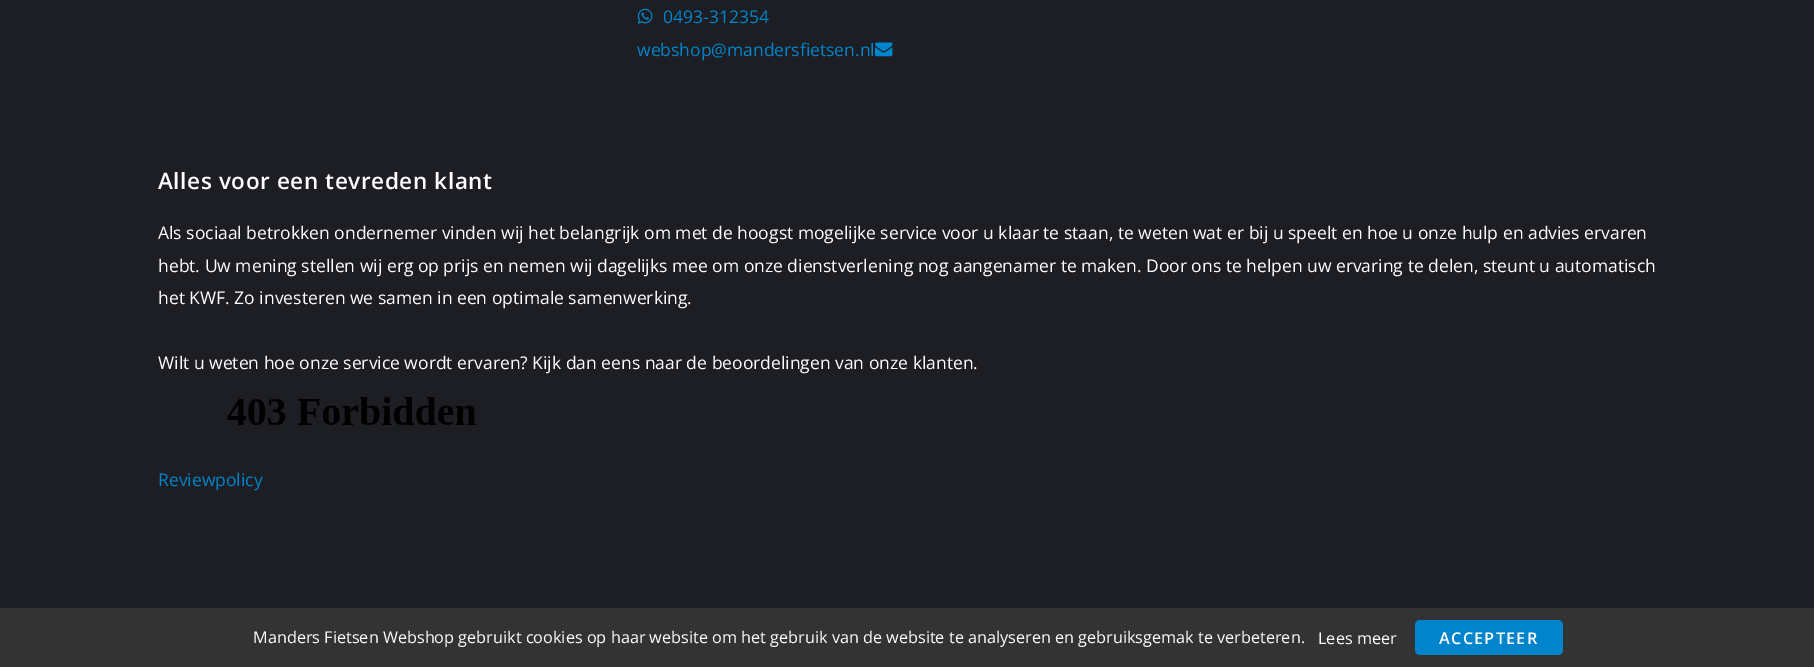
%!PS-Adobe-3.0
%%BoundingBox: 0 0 1814 667
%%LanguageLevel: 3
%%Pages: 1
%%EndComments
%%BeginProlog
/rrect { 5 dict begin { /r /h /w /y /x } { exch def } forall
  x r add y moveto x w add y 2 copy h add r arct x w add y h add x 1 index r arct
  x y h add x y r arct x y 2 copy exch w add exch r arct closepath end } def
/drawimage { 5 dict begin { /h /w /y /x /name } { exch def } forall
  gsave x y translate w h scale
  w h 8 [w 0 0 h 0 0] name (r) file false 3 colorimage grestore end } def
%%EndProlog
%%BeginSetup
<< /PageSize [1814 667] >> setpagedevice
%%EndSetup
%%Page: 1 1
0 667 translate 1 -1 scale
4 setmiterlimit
0.114 0.118 0.137 setrgbcolor
0 0 1814 667 rectfill
(images/1.raw) 637 8 16 16 drawimage
(images/2.raw) 875 42 18 15 drawimage
(images/3.raw) 227 397 250 28 drawimage
0.2 setgray
0 608 1814 59 rectfill
0 0.522 0.8 setrgbcolor
1415 620 148 35 5 rrect fill
/OpenSans-Regular [17.5 0 0 -17.5 0 0] selectfont
663 23 moveto (0493-312354) show
637 56 moveto (webshop@mandersfietsen.nl) show
/OpenSans-SemiBold [22.5 0 0 -22.5 0 0] selectfont
1 setgray
158 189 moveto 0.6 0 (Alles voor een tevreden klant) ashow
/OpenSans-Regular [17.5 0 0 -17.5 0 0] selectfont
158 239 moveto (Als sociaal betrokken ondernemer vinden wij het belangrijk om met de hoogst mogelijke service voor u klaar te staan, te weten wat er bij u speelt en hoe u onze hulp en advies ervaren) show
158 272 moveto (hebt. Uw mening stellen wij erg op prijs en nemen wij dagelijks mee om onze dienstverlening nog aangenamer te maken. Door ons te helpen uw ervaring te delen, steunt u automatisch) show
158 304 moveto (het KWF. Zo investeren we samen in een optimale samenwerking.) show
158 369 moveto (Wilt u weten hoe onze service wordt ervaren? Kijk dan eens naar de beoordelingen van onze klanten.) show
0 0.522 0.8 setrgbcolor
158 486 moveto (Reviewpolicy) show
/OpenSans-Regular [16.25 0 0 -16.25 0 0] selectfont
1 setgray
253 643 moveto (Manders Fietsen Webshop gebruikt cookies op haar website om het gebruik van de website te analyseren en gebruiksgemak te verbeteren.) show
1318 644 moveto (Lees meer) show
/OpenSans-SemiBold [16.25 0 0 -16.25 0 0] selectfont
1439 644 moveto 1.25 0 (ACCEPTEER) ashow
showpage
%%EOF
